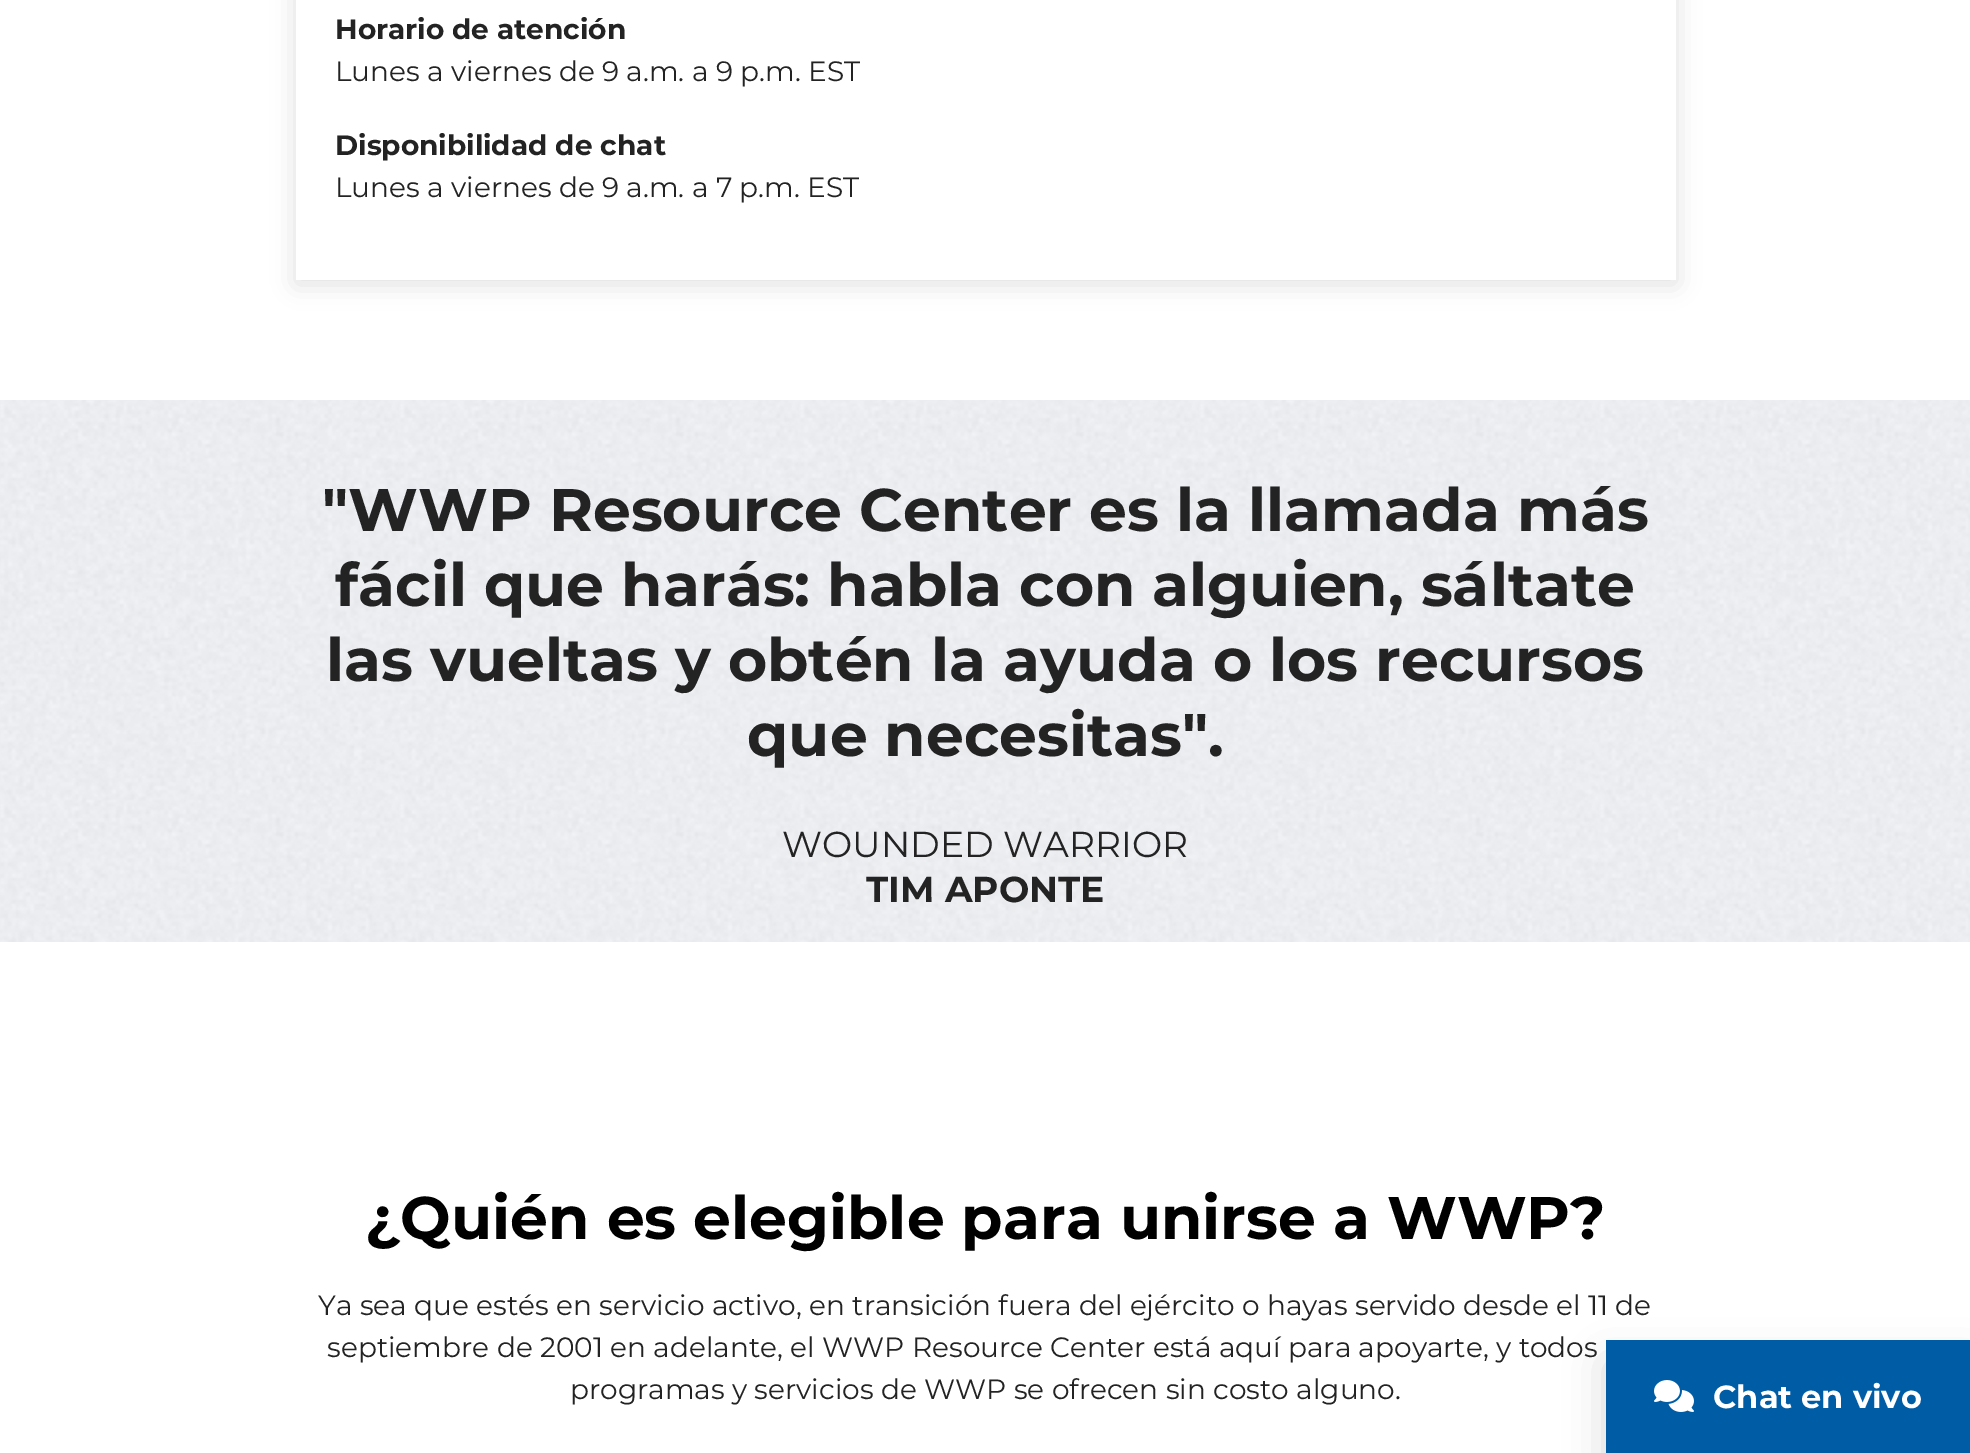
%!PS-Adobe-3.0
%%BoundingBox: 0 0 1970 1453
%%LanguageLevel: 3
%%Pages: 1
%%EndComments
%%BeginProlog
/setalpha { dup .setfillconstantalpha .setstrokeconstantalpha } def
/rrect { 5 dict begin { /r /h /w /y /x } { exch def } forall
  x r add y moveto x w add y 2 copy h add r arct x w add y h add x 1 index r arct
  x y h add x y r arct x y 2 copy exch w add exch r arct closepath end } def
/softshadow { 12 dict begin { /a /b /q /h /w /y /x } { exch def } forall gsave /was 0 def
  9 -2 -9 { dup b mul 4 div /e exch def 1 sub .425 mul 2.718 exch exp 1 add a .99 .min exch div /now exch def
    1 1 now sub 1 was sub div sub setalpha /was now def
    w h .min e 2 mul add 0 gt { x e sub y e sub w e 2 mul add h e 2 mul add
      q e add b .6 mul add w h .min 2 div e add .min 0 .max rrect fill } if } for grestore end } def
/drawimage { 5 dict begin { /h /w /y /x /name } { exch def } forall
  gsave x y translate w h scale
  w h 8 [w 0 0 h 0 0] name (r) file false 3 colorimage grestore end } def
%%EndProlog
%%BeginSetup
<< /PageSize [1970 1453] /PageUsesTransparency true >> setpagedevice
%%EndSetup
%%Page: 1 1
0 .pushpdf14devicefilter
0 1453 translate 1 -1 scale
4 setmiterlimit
1 setgray
0 0 1970 1453 rectfill
gsave
newpath 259 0 moveto 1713 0 lineto 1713 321 lineto 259 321 lineto closepath 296 -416 moveto 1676 -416 lineto 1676 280 lineto 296 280 lineto closepath eoclip newpath
0 setgray
296 -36 1380 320 0 12 0.12 softshadow
grestore
(images/1.raw) 0 400 1970 542 drawimage
0 setgray
1606 1362 364 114 0 20 0.15 softshadow
0 0.365 0.647 setrgbcolor
1606 1340 364 113 rectfill
(images/2.raw) 1654 1380 40 32 drawimage
/Montserrat-Thin [28 0 0 -28 0 0] selectfont
0.137 setgray
335 39 moveto (Horario de atención) show
/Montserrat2-Thin [28 0 0 -28 0 0] selectfont
335 81 moveto (Lunes a viernes de 9 a.m. a 9 p.m. EST) show
/Montserrat-Thin [28 0 0 -28 0 0] selectfont
335 155 moveto (Disponibilidad de chat) show
/Montserrat2-Thin [28 0 0 -28 0 0] selectfont
335 197 moveto (Lunes a viernes de 9 a.m. a 7 p.m. EST) show
/Montserrat-Thin [60 0 0 -60 0 0] selectfont
322 531 moveto ("WWP Resource Center es la llamada más) show
335 606 moveto (fácil que harás: habla con alguien, sáltate) show
326 681 moveto (las vueltas y obtén la ayuda o los recursos) show
747 756 moveto (que necesitas".) show
/Montserrat2-Thin [36 0 0 -36 0 0] selectfont
782 857 moveto (WOUNDED WARRIOR) show
/Montserrat-Thin [36 0 0 -36 0 0] selectfont
866 902 moveto (TIM APONTE) show
/Montserrat-Thin [60 0 0 -60 0 0] selectfont
0 setgray
365 1239 moveto (¿Quién es elegible para unirse a WWP?) show
/Montserrat2-Thin [28 0 0 -28 0 0] selectfont
0.137 setgray
318 1315 moveto (Ya sea que estés en servicio activo, en transición fuera del ejército o hayas servido desde el 11 de) show
327 1357 moveto (septiembre de 2001 en adelante, el WWP Resource Center está aquí para apoyarte, y todos) show
570 1399 moveto (programas y servicios de WWP se ofrecen sin costo alguno.) show
/Montserrat-Thin [32 0 0 -32 0 0] selectfont
1 setgray
1713 1408 moveto (Chat en vivo) show
.poppdf14devicefilter showpage
%%EOF
